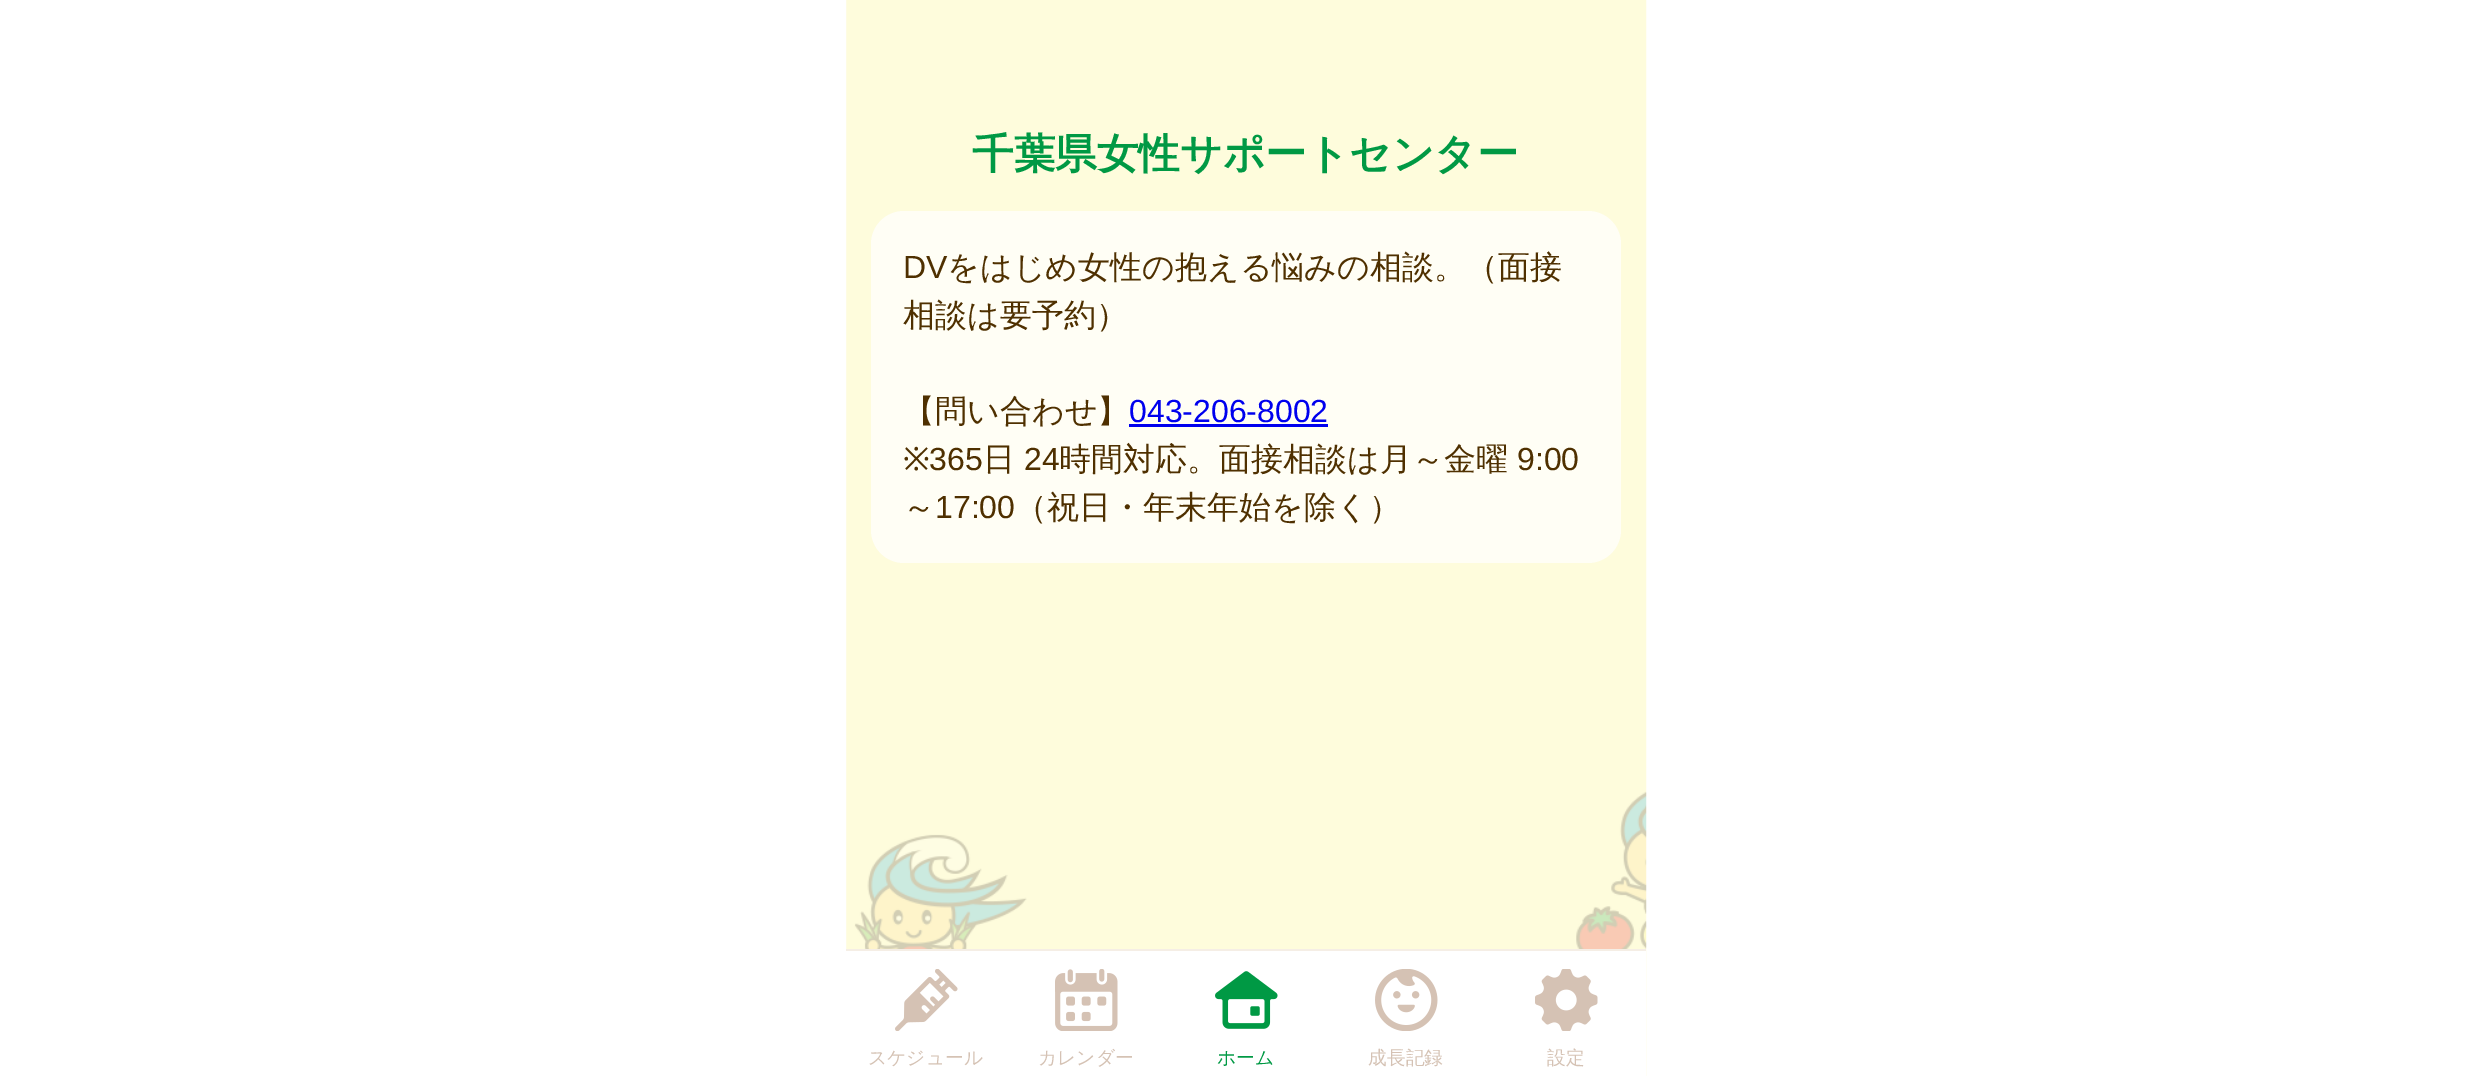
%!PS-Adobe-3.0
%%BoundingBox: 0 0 2491 1076
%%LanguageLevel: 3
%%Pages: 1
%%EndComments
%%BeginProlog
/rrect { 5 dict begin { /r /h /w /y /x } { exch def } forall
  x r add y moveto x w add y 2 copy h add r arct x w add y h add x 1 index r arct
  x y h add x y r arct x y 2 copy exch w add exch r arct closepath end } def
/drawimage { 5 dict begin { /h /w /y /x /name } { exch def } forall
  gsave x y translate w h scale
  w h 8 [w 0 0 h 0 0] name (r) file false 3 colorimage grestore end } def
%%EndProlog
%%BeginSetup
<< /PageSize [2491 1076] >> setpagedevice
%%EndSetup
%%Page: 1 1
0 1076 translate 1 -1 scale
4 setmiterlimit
1 setgray
0 0 2491 1076 rectfill
(images/1.raw) 846 0 801 1076 drawimage
1 0.996 0.961 setrgbcolor
871 211 750 352 33 rrect fill
0 0 0.933 setrgbcolor
1129 424 199 3 rectfill
0.961 0.933 0.898 setrgbcolor
846 949 800 2 rectfill
1 setgray
846 951 800 125 rectfill
(images/2.raw) 895 969 63 62 drawimage
(images/3.raw) 1055 969 63 62 drawimage
(images/4.raw) 1215 971 63 58 drawimage
(images/5.raw) 1375 969 63 62 drawimage
(images/6.raw) 1535 969 63 62 drawimage
/WenQuanYiZenHei-Bold [41.6 0 0 -41.6 0 0] selectfont
0 0.6 0.267 setrgbcolor
972 168 moveto (千葉県女性サポートセンター) show
/LiberationSans-Regular [32 0 0 -32 0 0] selectfont
0.31 0.188 0 setrgbcolor
903 278 moveto (DV) show
/WenQuanYiZenHei-Medium [32 0 0 -32 0 0] selectfont
947 278 moveto (をはじめ女性の抱える悩みの相談。（面接) show
903 326 moveto (相談は要予約）) show
903 422 moveto (【問い合わせ】) show
/LiberationSans-Regular [32 0 0 -32 0 0] selectfont
0 0 0.933 setrgbcolor
1129 422 moveto (043-206-8002) show
/NotoSans-Regular [32 0 0 -32 0 0] selectfont
0.31 0.188 0 setrgbcolor
903 470 moveto (※) show
/LiberationSans-Regular [32 0 0 -32 0 0] selectfont
929 470 moveto (365) show
/WenQuanYiZenHei-Medium [32 0 0 -32 0 0] selectfont
983 470 moveto (日) show
/LiberationSans-Regular [32 0 0 -32 0 0] selectfont
1024 470 moveto (24) show
/WenQuanYiZenHei-Medium [32 0 0 -32 0 0] selectfont
1059 470 moveto (時間対応。面接相談は月～金曜) show
/LiberationSans-Regular [32 0 0 -32 0 0] selectfont
1517 470 moveto (9:00) show
/WenQuanYiZenHei-Medium [32 0 0 -32 0 0] selectfont
903 518 moveto (～) show
/LiberationSans-Regular [32 0 0 -32 0 0] selectfont
935 518 moveto (17:00) show
/WenQuanYiZenHei-Medium [32 0 0 -32 0 0] selectfont
1015 518 moveto (（祝日・年末年始を除く）) show
/WenQuanYiZenHei-Medium [18.75 0 0 -18.75 0 0] selectfont
0.835 0.761 0.706 setrgbcolor
868 1064 moveto (スケジュール) show
1038 1064 moveto (カレンダー) show
0 0.6 0.267 setrgbcolor
1217 1064 moveto (ホーム) show
0.835 0.761 0.706 setrgbcolor
1368 1064 moveto (成長記録) show
1547 1064 moveto (設定) show
showpage
%%EOF
